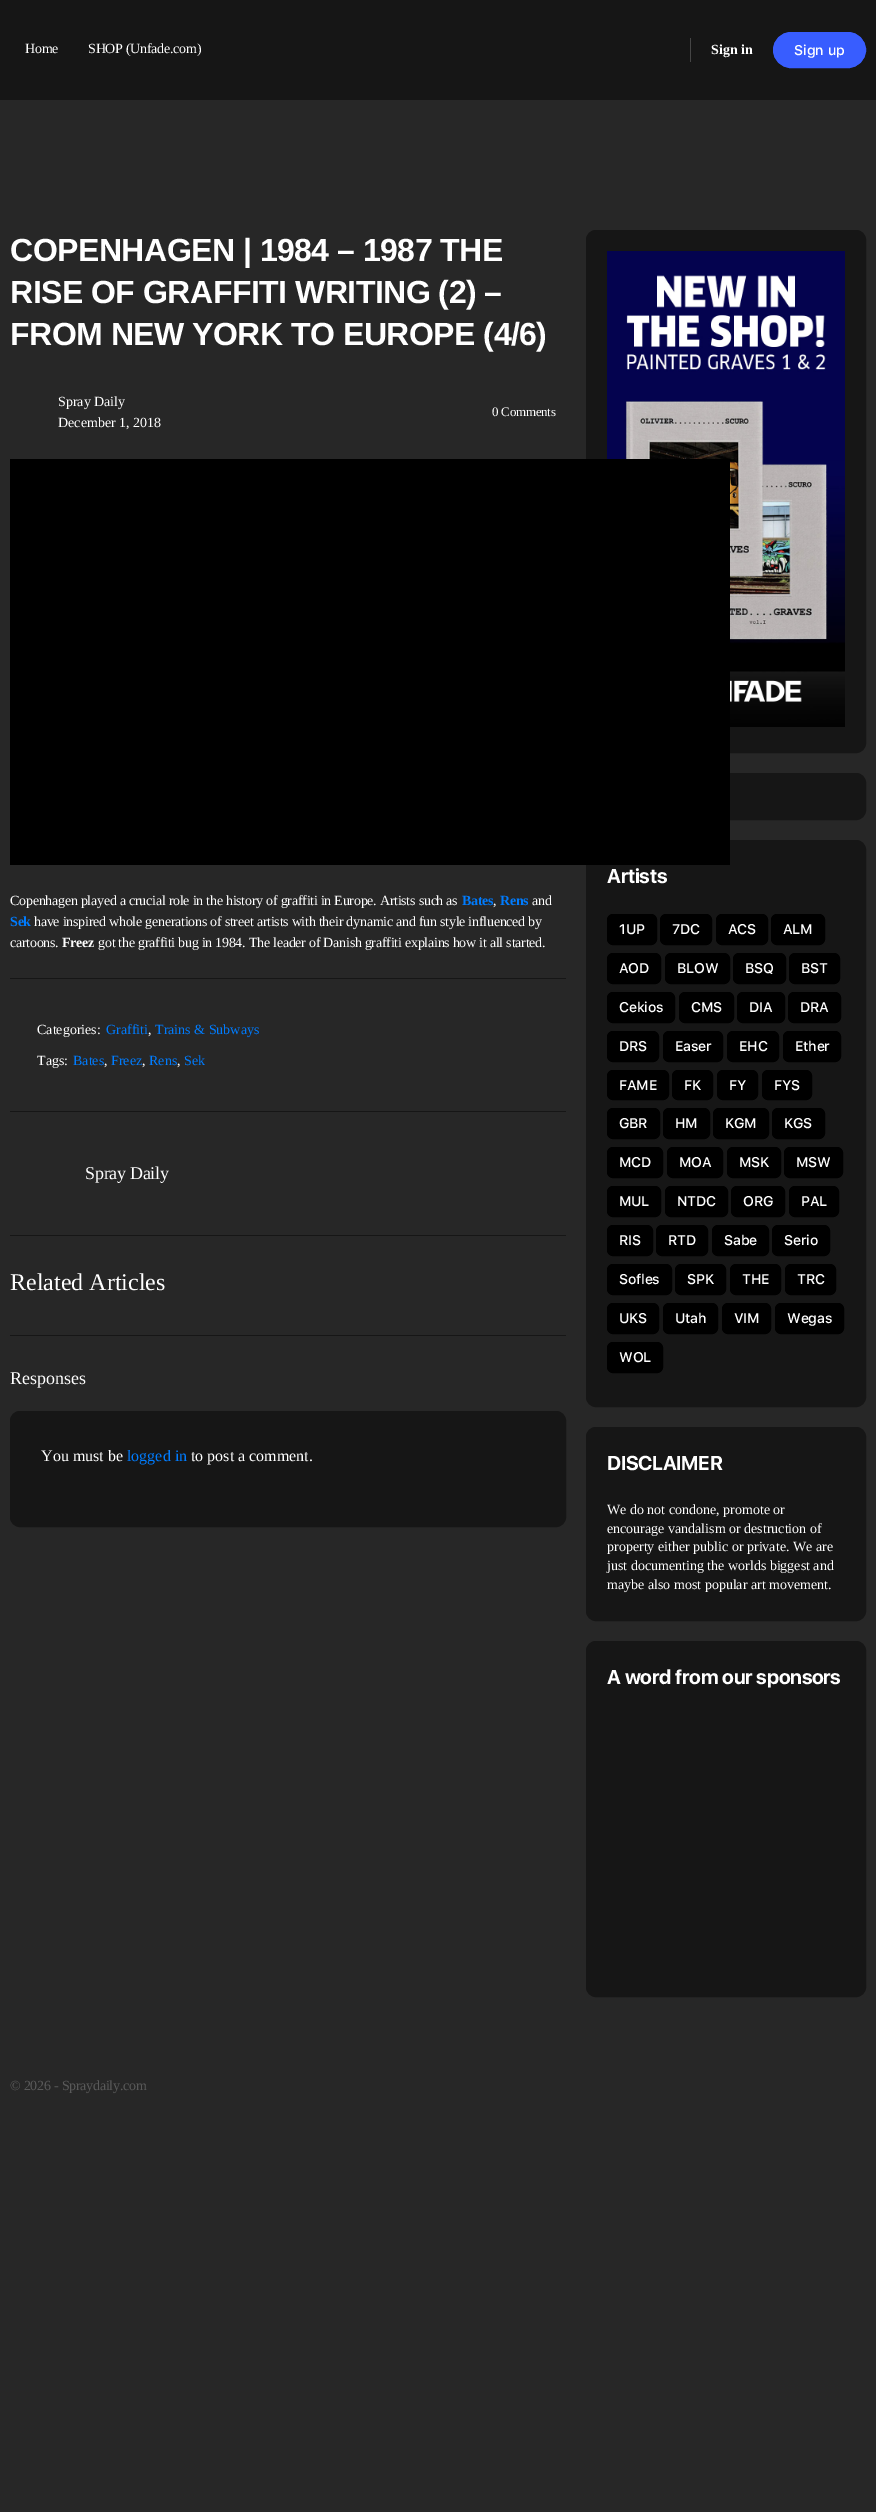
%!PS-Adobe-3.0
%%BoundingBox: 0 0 876 2512
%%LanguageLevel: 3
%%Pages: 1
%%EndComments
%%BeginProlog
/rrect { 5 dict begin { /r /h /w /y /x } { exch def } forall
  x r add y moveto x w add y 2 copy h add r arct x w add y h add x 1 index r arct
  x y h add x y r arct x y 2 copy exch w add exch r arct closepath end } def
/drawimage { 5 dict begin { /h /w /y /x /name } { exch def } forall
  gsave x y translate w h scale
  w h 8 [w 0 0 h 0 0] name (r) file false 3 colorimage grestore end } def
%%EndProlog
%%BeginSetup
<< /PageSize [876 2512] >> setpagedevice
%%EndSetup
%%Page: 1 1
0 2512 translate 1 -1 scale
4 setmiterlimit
0.153 setgray
0 0 876 2512 rectfill
0.086 setgray
0 0 876 100 rectfill
0.271 setgray
690 38 1 24 rectfill
0.22 0.365 1 setrgbcolor
773.5 32.5 92 35 17.5 rrect gsave fill grestore
stroke
0.086 setgray
586.5 230.5 279 522 9.5 rrect gsave fill grestore
stroke
(images/1.raw) 607 251 238 476 drawimage
586.5 773.5 279 46 9.5 rrect gsave fill grestore
stroke
586.5 840.5 279 566 9.5 rrect gsave fill grestore
stroke
0 setgray
10 459 720 406 rectfill
0.086 setgray
10 978 556 1 rectfill
10 1235 556 1 rectfill
10 1111 556 1 rectfill
10 1335 556 1 rectfill
10.5 1411.5 555 115 9.5 rrect gsave fill grestore
stroke
0 setgray
607.5 914.5 49 30 5.5 rrect gsave fill grestore
stroke
660.5 914.5 51 30 5.5 rrect gsave fill grestore
stroke
716.5 914.5 51 30 5.5 rrect gsave fill grestore
stroke
771.5 914.5 53 30 5.5 rrect gsave fill grestore
stroke
607.5 953.5 53 30 5.5 rrect gsave fill grestore
stroke
665.5 953.5 64 30 5.5 rrect gsave fill grestore
stroke
733.5 953.5 52 30 5.5 rrect gsave fill grestore
stroke
789.5 953.5 50 30 5.5 rrect gsave fill grestore
stroke
607.5 992.5 67 30 5.5 rrect gsave fill grestore
stroke
679.5 992.5 54 30 5.5 rrect gsave fill grestore
stroke
737.5 992.5 47 30 5.5 rrect gsave fill grestore
stroke
788.5 992.5 52 30 5.5 rrect gsave fill grestore
stroke
607.5 1031.5 51 30 5.5 rrect gsave fill grestore
stroke
663.5 1031.5 59 30 5.5 rrect gsave fill grestore
stroke
727.5 1031.5 51 30 5.5 rrect gsave fill grestore
stroke
783.5 1031.5 57 30 5.5 rrect gsave fill grestore
stroke
607.5 1070.5 61 29 5.5 rrect gsave fill grestore
stroke
672.5 1070.5 40 29 5.5 rrect gsave fill grestore
stroke
717.5 1070.5 40 29 5.5 rrect gsave fill grestore
stroke
762.5 1070.5 49 29 5.5 rrect gsave fill grestore
stroke
607.5 1108.5 52 30 5.5 rrect gsave fill grestore
stroke
663.5 1108.5 46 30 5.5 rrect gsave fill grestore
stroke
713.5 1108.5 55 30 5.5 rrect gsave fill grestore
stroke
772.5 1108.5 52 30 5.5 rrect gsave fill grestore
stroke
607.5 1147.5 55 30 5.5 rrect gsave fill grestore
stroke
667.5 1147.5 55 30 5.5 rrect gsave fill grestore
stroke
727.5 1147.5 53 30 5.5 rrect gsave fill grestore
stroke
784.5 1147.5 58 30 5.5 rrect gsave fill grestore
stroke
607.5 1186.5 53 30 5.5 rrect gsave fill grestore
stroke
665.5 1186.5 62 30 5.5 rrect gsave fill grestore
stroke
731.5 1186.5 53 30 5.5 rrect gsave fill grestore
stroke
789.5 1186.5 49 30 5.5 rrect gsave fill grestore
stroke
607.5 1225.5 45 30 5.5 rrect gsave fill grestore
stroke
656.5 1225.5 51 30 5.5 rrect gsave fill grestore
stroke
712.5 1225.5 56 30 5.5 rrect gsave fill grestore
stroke
772.5 1225.5 57 30 5.5 rrect gsave fill grestore
stroke
607.5 1264.5 64 30 5.5 rrect gsave fill grestore
stroke
675.5 1264.5 50 30 5.5 rrect gsave fill grestore
stroke
730.5 1264.5 50 30 5.5 rrect gsave fill grestore
stroke
785.5 1264.5 50 30 5.5 rrect gsave fill grestore
stroke
607.5 1303.5 51 30 5.5 rrect gsave fill grestore
stroke
663.5 1303.5 54 30 5.5 rrect gsave fill grestore
stroke
722.5 1303.5 48 30 5.5 rrect gsave fill grestore
stroke
775.5 1303.5 68 30 5.5 rrect gsave fill grestore
stroke
607.5 1342.5 55 30 5.5 rrect gsave fill grestore
stroke
0.086 setgray
586.5 1427.5 279 193 9.5 rrect gsave fill grestore
stroke
586.5 1641.5 279 355 9.5 rrect gsave fill grestore
stroke
/LiberationSerif-Regular [14 0 0 -14 0 0] selectfont
1 setgray
25 53 moveto -0.25 0 (Home) ashow
88 53 moveto -0.25 0 (SHOP \(Unfade.com\)) ashow
/LiberationSerif-Bold [14 0 0 -14 0 0] selectfont
711 54 moveto (Sign in) show
/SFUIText-Medium [14 0 0 -14 0 0] selectfont
794 55 moveto (Sign up) show
/LiberationSans-Bold [32 0 0 -32 0 0] selectfont
10 261 moveto -0.5 0 (COPENHAGEN | 1984 – 1987 THE) ashow
10 303 moveto -0.5 0 (RISE OF GRAFFITI WRITING \(2\) –) ashow
10 345 moveto -0.5 0 (FROM NEW YORK TO EUROPE \(4/6\)) ashow
/LiberationSerif-Regular [14 0 0 -14 0 0] selectfont
58 406 moveto (Spray Daily) show
58 427 moveto (December 1, 2018) show
/LiberationSerif-Regular [13 0 0 -13 0 0] selectfont
492 416 moveto -0.25 0 (0 Comments) ashow
/LiberationSerif-Regular [14 0 0 -14 0 0] selectfont
10 905 moveto -0.25 0 (Copenhagen played a crucial role in the history of graffiti in Europe. Artists such as) ashow
/LiberationSerif-Bold [14 0 0 -14 0 0] selectfont
0 0.486 1 setrgbcolor
462 905 moveto -0.25 0 (Bates) ashow
/LiberationSerif-Regular [14 0 0 -14 0 0] selectfont
1 setgray
493 905 moveto -0.25 0 (,) ashow
/LiberationSerif-Bold [14 0 0 -14 0 0] selectfont
0 0.486 1 setrgbcolor
500 905 moveto -0.25 0 (Rens) ashow
/LiberationSerif-Regular [14 0 0 -14 0 0] selectfont
1 setgray
532 905 moveto -0.25 0 (and) ashow
/LiberationSerif-Bold [14 0 0 -14 0 0] selectfont
0 0.486 1 setrgbcolor
10 926 moveto -0.25 0 (Sek) ashow
/LiberationSerif-Regular [14 0 0 -14 0 0] selectfont
1 setgray
34 926 moveto -0.25 0 (have inspired whole generations of street artists with their dynamic and fun style influenced by) ashow
10 947 moveto -0.25 0 (cartoons.) ashow
/LiberationSerif-Bold [14 0 0 -14 0 0] selectfont
62 947 moveto -0.25 0 (Freez) ashow
/LiberationSerif-Regular [14 0 0 -14 0 0] selectfont
98 947 moveto -0.25 0 (got the graffiti bug in 1984. The leader of Danish graffiti explains how it all started.) ashow
37 1034 moveto (Categories:) show
0 0.486 1 setrgbcolor
106 1034 moveto (Graffiti) show
1 setgray
148 1034 moveto (,) show
0 0.486 1 setrgbcolor
155 1034 moveto (Trains & Subways) show
1 setgray
37 1065 moveto (Tags:) show
0 0.486 1 setrgbcolor
73 1065 moveto (Bates) show
1 setgray
104 1065 moveto (,) show
0 0.486 1 setrgbcolor
111 1065 moveto (Freez) show
1 setgray
142 1065 moveto (,) show
0 0.486 1 setrgbcolor
149 1065 moveto (Rens) show
1 setgray
177 1065 moveto (,) show
0 0.486 1 setrgbcolor
184 1065 moveto (Sek) show
/LiberationSerif-Regular [18 0 0 -18 0 0] selectfont
1 setgray
85 1179 moveto -0.25 0 (Spray Daily) ashow
/LiberationSerif-Regular [24 0 0 -24 0 0] selectfont
10 1290 moveto (Related Articles) show
/LiberationSerif-Regular [18 0 0 -18 0 0] selectfont
10 1384 moveto (Responses) show
/LiberationSerif-Regular [16 0 0 -16 0 0] selectfont
41 1461 moveto (You must be) show
0 0.486 1 setrgbcolor
127 1461 moveto (logged in) show
1 setgray
191 1461 moveto (to post a comment.) show
/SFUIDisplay-Bold [20 0 0 -20 0 0] selectfont
607 883 moveto -0.25 0 (Artists) ashow
/SFUIText-Medium [14 0 0 -14 0 0] selectfont
619 934 moveto -0.25 0 (1UP) ashow
672 934 moveto -0.25 0 (7DC) ashow
728 934 moveto -0.25 0 (ACS) ashow
783 934 moveto -0.25 0 (ALM) ashow
619 973 moveto -0.25 0 (AOD) ashow
677 973 moveto -0.25 0 (BLOW) ashow
745 973 moveto -0.25 0 (BSQ) ashow
801 973 moveto -0.25 0 (BST) ashow
619 1012 moveto -0.25 0 (Cekios) ashow
691 1012 moveto -0.25 0 (CMS) ashow
749 1012 moveto -0.25 0 (DIA) ashow
800 1012 moveto -0.25 0 (DRA) ashow
619 1051 moveto -0.25 0 (DRS) ashow
675 1051 moveto -0.25 0 (Easer) ashow
739 1051 moveto -0.25 0 (EHC) ashow
795 1051 moveto -0.25 0 (Ether) ashow
619 1090 moveto -0.25 0 (FAME) ashow
684 1090 moveto -0.25 0 (FK) ashow
729 1090 moveto -0.25 0 (FY) ashow
774 1090 moveto -0.25 0 (FYS) ashow
619 1128 moveto -0.25 0 (GBR) ashow
675 1128 moveto -0.25 0 (HM) ashow
725 1128 moveto -0.25 0 (KGM) ashow
784 1128 moveto -0.25 0 (KGS) ashow
619 1167 moveto -0.25 0 (MCD) ashow
679 1167 moveto -0.25 0 (MOA) ashow
739 1167 moveto -0.25 0 (MSK) ashow
796 1167 moveto -0.25 0 (MSW) ashow
619 1206 moveto -0.25 0 (MUL) ashow
677 1206 moveto -0.25 0 (NTDC) ashow
743 1206 moveto -0.25 0 (ORG) ashow
801 1206 moveto -0.25 0 (PAL) ashow
619 1245 moveto -0.25 0 (RIS) ashow
668 1245 moveto -0.25 0 (RTD) ashow
724 1245 moveto -0.25 0 (Sabe) ashow
784 1245 moveto -0.25 0 (Serio) ashow
619 1284 moveto -0.25 0 (Sofles) ashow
687 1284 moveto -0.25 0 (SPK) ashow
742 1284 moveto -0.25 0 (THE) ashow
797 1284 moveto -0.25 0 (TRC) ashow
619 1323 moveto -0.25 0 (UKS) ashow
675 1323 moveto -0.25 0 (Utah) ashow
734 1323 moveto -0.25 0 (VIM) ashow
787 1323 moveto -0.25 0 (Wegas) ashow
619 1362 moveto -0.25 0 (WOL) ashow
/SFUIDisplay-Bold [20 0 0 -20 0 0] selectfont
607 1470 moveto -0.25 0 (DISCLAIMER) ashow
/LiberationSerif-Regular [14 0 0 -14 0 0] selectfont
607 1514 moveto (We do not condone, promote or) show
607 1533 moveto (encourage vandalism or destruction of) show
607 1551 moveto (property either public or private. We are) show
607 1570 moveto (just documenting the worlds biggest and) show
607 1589 moveto (maybe also most popular art movement.) show
/SFUIDisplay-Bold [20 0 0 -20 0 0] selectfont
607 1684 moveto -0.25 0 (A word from our sponsors) ashow
/LiberationSerif-Regular [14 0 0 -14 0 0] selectfont
0.353 setgray
10 2090 moveto -0.25 0 (© 2026 - Spraydaily.com) ashow
showpage
%%EOF
